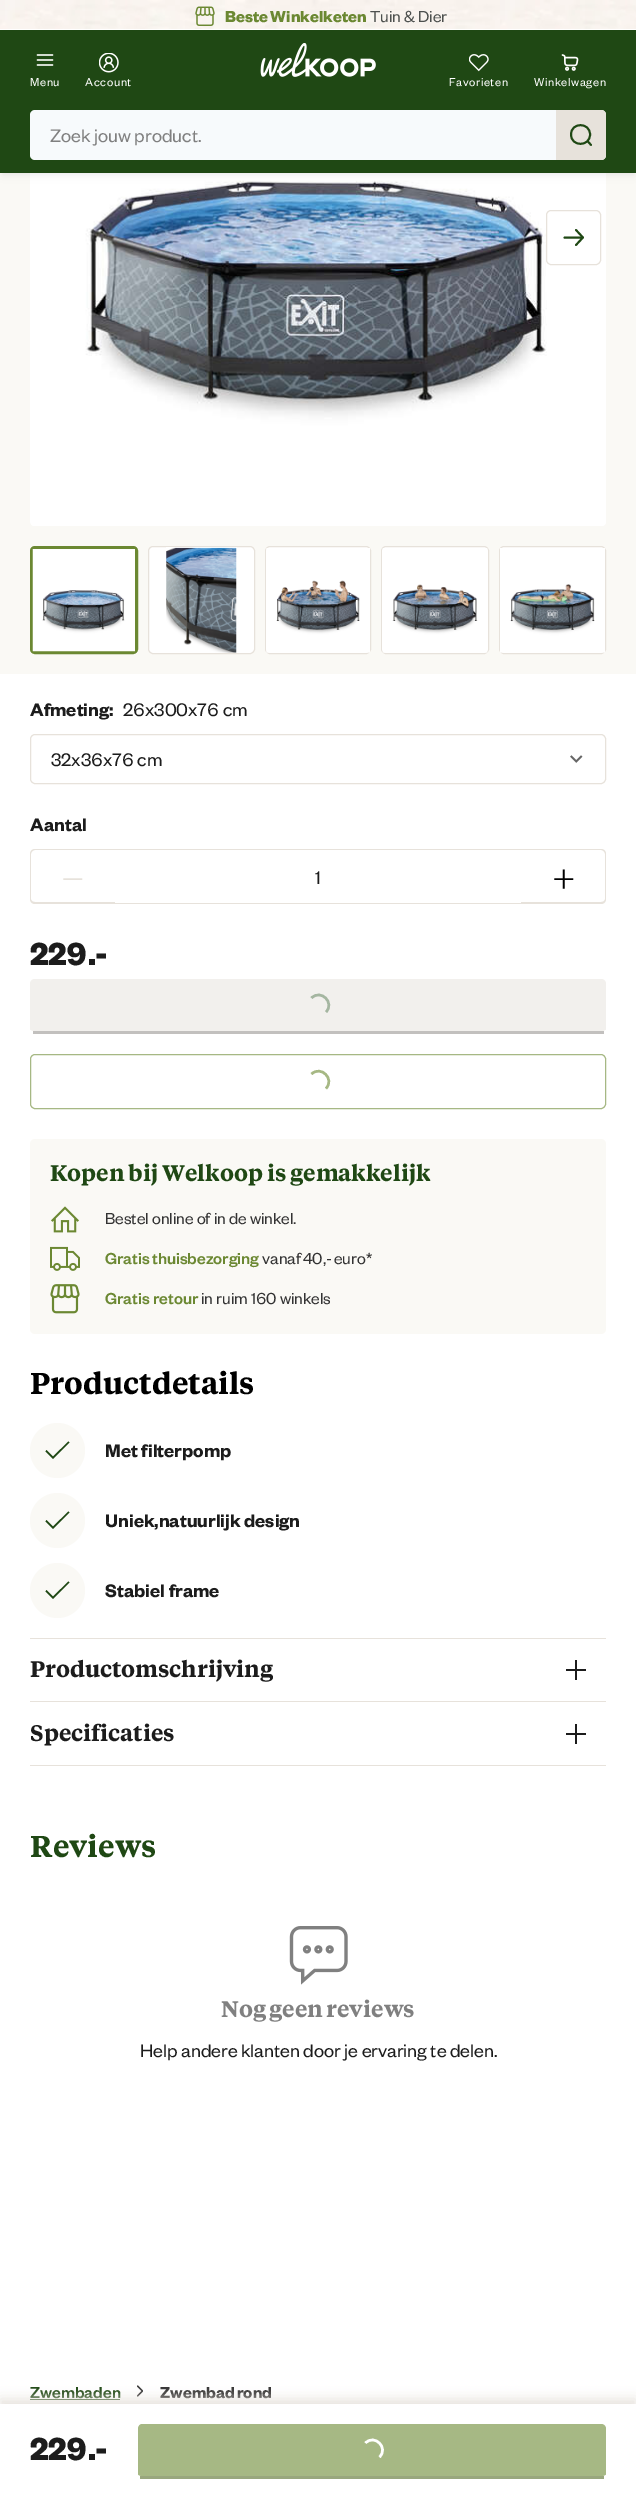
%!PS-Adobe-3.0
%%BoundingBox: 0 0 636 2498
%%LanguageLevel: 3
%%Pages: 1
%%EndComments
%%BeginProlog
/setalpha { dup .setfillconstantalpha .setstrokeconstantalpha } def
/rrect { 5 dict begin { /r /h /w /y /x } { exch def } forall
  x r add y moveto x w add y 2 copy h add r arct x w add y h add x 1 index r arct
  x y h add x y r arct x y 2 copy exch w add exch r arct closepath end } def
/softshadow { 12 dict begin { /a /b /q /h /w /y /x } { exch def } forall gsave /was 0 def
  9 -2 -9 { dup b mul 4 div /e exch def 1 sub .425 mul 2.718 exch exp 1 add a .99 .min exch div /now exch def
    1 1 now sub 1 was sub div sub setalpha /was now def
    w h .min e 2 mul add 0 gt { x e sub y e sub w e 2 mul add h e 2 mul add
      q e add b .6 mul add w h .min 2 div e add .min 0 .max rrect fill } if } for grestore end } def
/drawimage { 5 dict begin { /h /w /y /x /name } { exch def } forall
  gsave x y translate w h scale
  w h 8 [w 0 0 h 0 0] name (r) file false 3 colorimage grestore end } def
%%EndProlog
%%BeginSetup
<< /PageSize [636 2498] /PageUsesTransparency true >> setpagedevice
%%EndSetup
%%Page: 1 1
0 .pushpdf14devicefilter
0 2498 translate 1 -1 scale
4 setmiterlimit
1 setgray
0 0 636 2498 rectfill
0.98 0.976 0.961 setrgbcolor
30 1139 576 195 5 rrect fill
(images/15.raw) 51 1206 28 27 drawimage
(images/16.raw) 50 1246 30 25 drawimage
(images/17.raw) 50 1284 30 30 drawimage
newpath 57.5 1450.5 27.5 0 360 arc closepath fill
0.122 0.282 0.078 setrgbcolor
newpath 68.5 1441.5 moveto 53 1456.5 lineto 46.5 1450 lineto 45.5 1451.5 lineto 53 1459 lineto 69.5 1442.5 lineto closepath fill
0.98 0.976 0.961 setrgbcolor
newpath 57.5 1520.5 27.5 0 360 arc closepath fill
0.122 0.282 0.078 setrgbcolor
newpath 68.5 1511.5 moveto 53 1526.5 lineto 46.5 1520 lineto 45.5 1521.5 lineto 53 1529 lineto 69.5 1512.5 lineto closepath fill
0.98 0.976 0.961 setrgbcolor
newpath 57.5 1590.5 27.5 0 360 arc closepath fill
0.122 0.282 0.078 setrgbcolor
newpath 68.5 1581.5 moveto 53 1596.5 lineto 46.5 1590 lineto 45.5 1591.5 lineto 53 1599 lineto 69.5 1582.5 lineto closepath fill
0.906 0.886 0.859 setrgbcolor
30 1638 576 1 rectfill
0.11 setgray
575 1660 2 20 rectfill
566 1669 20 2 rectfill
0.906 0.886 0.859 setrgbcolor
30 1701 576 1 rectfill
30 1765 576 1 rectfill
0.11 setgray
575 1724 2 20 rectfill
566 1733 20 2 rectfill
(images/18.raw) 289 1926 59 59 drawimage
0.122 0.282 0.078 setrgbcolor
30 2399 90 1 rectfill
0.2 setgray
1.2 setlinewidth
1 setlinecap
1 setlinejoin
newpath 137.5 2396 moveto 142.5 2391 lineto 137.5 2386 lineto stroke
/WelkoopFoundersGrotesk-SemiBold [20 0 0 -20 0 0] selectfont
0.11 setgray
30 716 moveto (Afmeting:) show
/WelkoopFoundersGrotesk-Regular [20 0 0 -20 0 0] selectfont
123 716 moveto (26x300x76 cm) show
/WelkoopFoundersGrotesk-SemiBold [20 0 0 -20 0 0] selectfont
30 831 moveto (Aantal) show
/WelkoopFoundersGrotesk-Bold [35 0 0 -35 0 0] selectfont
30 965 moveto (229.) show
95 965 moveto (-) show
/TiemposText-SemiBold [22.5 0 0 -22.5 0 0] selectfont
0.122 0.282 0.078 setrgbcolor
50 1181 moveto -0.5 0 32 (Kopen bij Welkoop is gemakkelijk) widthshow
/WelkoopFoundersGrotesk-Regular [17.5 0 0 -17.5 0 0] selectfont
0.2 setgray
105 1224 moveto (Bestel online of in de winkel.) show
/WelkoopFoundersGrotesk-Medium [17.5 0 0 -17.5 0 0] selectfont
0.42 0.533 0.196 setrgbcolor
105 1264 moveto -1 0 32 (Gratis thuisbezorging) widthshow
/WelkoopFoundersGrotesk-Regular [17.5 0 0 -17.5 0 0] selectfont
0.2 setgray
262 1264 moveto -1 0 32 (vanaf 40,- euro*) widthshow
/WelkoopFoundersGrotesk-Medium [17.5 0 0 -17.5 0 0] selectfont
0.42 0.533 0.196 setrgbcolor
105 1304 moveto (Gratis retour) show
/WelkoopFoundersGrotesk-Regular [17.5 0 0 -17.5 0 0] selectfont
0.2 setgray
201 1304 moveto (in ruim 160 winkels) show
/TiemposText-SemiBold [30 0 0 -30 0 0] selectfont
0 setgray
30 1394 moveto (Productdetails) show
/WelkoopFoundersGrotesk-SemiBold [20 0 0 -20 0 0] selectfont
0.11 setgray
105 1457 moveto (Met filterpomp) show
105 1527 moveto (Uniek,natuurlijk design) show
105 1597 moveto (Stabiel frame) show
/TiemposText-SemiBold [22.5 0 0 -22.5 0 0] selectfont
30 1677 moveto (Productomschrijving) show
30 1741 moveto (Specificaties) show
/TiemposText-SemiBold [30 0 0 -30 0 0] selectfont
0.122 0.282 0.078 setrgbcolor
30 1857 moveto (Reviews) show
/TiemposText-SemiBold [22.5 0 0 -22.5 0 0] selectfont
0.502 setgray
221 2017 moveto -1 0 32 (Nog geen reviews) widthshow
/WelkoopFoundersGrotesk-Regular [20 0 0 -20 0 0] selectfont
0.11 setgray
140 2057 moveto (Help andere klanten door je ervaring te delen.) show
/WelkoopFoundersGrotesk-Medium [17.5 0 0 -17.5 0 0] selectfont
0.122 0.282 0.078 setrgbcolor
30 2398 moveto (Zwembaden) show
/WelkoopFoundersGrotesk-SemiBold [17.5 0 0 -17.5 0 0] selectfont
0.2 setgray
160 2398 moveto -1 0 32 (Zwembad rond) widthshow
gsave
0 0 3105 674 rectclip
0.98 0.976 0.961 setrgbcolor
2499 setlinewidth
0 setlinecap
0 setlinejoin
-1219.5 -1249.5 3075 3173 rectstroke
grestore
0.98 0.976 0.961 setrgbcolor
30 521 576 153 rectfill
1 setgray
30 -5 576 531 5 rrect fill
(images/8.raw) 31 180 575 346 drawimage
0.063 0.094 0.157 setrgbcolor
3 8 631 167 0 5 0.05 softshadow
3 5 631 168 0 2.5 0.06 softshadow
0.122 0.282 0.078 setrgbcolor
0 30 636 143 rectfill
0.969 0.98 0.988 setrgbcolor
30 110 576 50 5 rrect fill
0.906 0.886 0.859 setrgbcolor
newpath 556 110 moveto 601 110 lineto 604 110 606 112 606 115 curveto 606 155 lineto 606 158 604 160 601 160 curveto 556 160 lineto closepath fill
0.122 0.282 0.078 setrgbcolor
1.9 setlinewidth
newpath 587.5 141 moveto 591 145 lineto 590 134.5 moveto 590 147 571 147 571 134.5 curveto 571 122 590 122 590 134.5 curveto closepath stroke
/WelkoopFoundersGrotesk-Regular [20 0 0 -20 0 0] selectfont
0.502 setgray
50 142 moveto (Zoek jouw product.) show
(images/7.raw) 561 54 18 17 drawimage
/WelkoopFoundersGrotesk-Regular [12.5 0 0 -12.5 0 0] selectfont
1 setgray
534 86 moveto 0.6 0 (Winkelwagen) ashow
(images/6.raw) 469 54 20 18 drawimage
449 86 moveto 0.6 0 (Favorieten) ashow
(images/3.raw) 260 43 116 34 drawimage
(images/5.raw) 99 53 20 20 drawimage
85 86 moveto 0.6 0 (Account) ashow
(images/4.raw) 36 54 18 12 drawimage
30 86 moveto 0.6 0 (Menu) ashow
(images/1.raw) 0 0 636 29 drawimage
(images/2.raw) 195 6 20 20 drawimage
/WelkoopFoundersGrotesk-Regular [17.5 0 0 -17.5 0 0] selectfont
0.302 0.314 0.306 setrgbcolor
370 22 moveto (Tuin & Dier) show
/WelkoopFoundersGrotesk-Bold [17.5 0 0 -17.5 0 0] selectfont
0.42 0.533 0.196 setrgbcolor
225 22 moveto -1 0 32 (Beste Winkelketen) widthshow
1 setgray
0 29 636 1 rectfill
0.906 0.886 0.859 setrgbcolor
0 2399 636 95 0 6 1 softshadow
1 setgray
0 2404 636 94 rectfill
0.651 0.722 0.518 setrgbcolor
newpath 142 2424 moveto 601 2424 lineto 604 2424 606 2426 606 2429 curveto 606 2474 lineto 606 2475 604 2476 601 2476 curveto 142 2476 lineto 140 2476 138 2475 138 2474 curveto 138 2429 lineto 138 2426 140 2424 142 2424 curveto closepath fill
1 setgray
2.5 setlinewidth
0 setlinecap
0 setlinejoin
newpath 365.5 2443 moveto 374.5 2433.5 389 2448 379.5 2457 curveto stroke
0.6 0.655 0.494 setrgbcolor
140 2476 464 3 rectfill
/WelkoopFoundersGrotesk-Bold [35 0 0 -35 0 0] selectfont
0.11 setgray
95 2460 moveto (-) show
30 2460 moveto (229.) show
0.651 0.722 0.518 setrgbcolor
1 setlinewidth
30.5 1054.5 575 54 4.5 rrect stroke
2.5 setlinewidth
newpath 311.5 1074 moveto 321 1065 335 1079 326 1088.5 curveto stroke
0.949 0.941 0.929 setrgbcolor
newpath 35 979 moveto 601 979 lineto 604 979 606 981 606 984 curveto 606 1029 lineto 606 1030 604 1031 601 1031 curveto 35 1031 lineto 32 1031 30 1030 30 1029 curveto 30 984 lineto 30 981 32 979 35 979 curveto closepath fill
0.647 0.714 0.631 setrgbcolor
newpath 311.5 998 moveto 321 988.5 335 1003 326 1012 curveto stroke
0.761 0.753 0.745 setrgbcolor
33 1031 571 3 rectfill
0.906 0.886 0.859 setrgbcolor
newpath 521 849 moveto 601 849 lineto 604 849 606 851 606 854 curveto 606 899 lineto 606 902 604 904 601 904 curveto 521 904 lineto closepath 521 850 moveto 601 850 lineto 603 850 605 852 605 854 curveto 605 899 lineto 605 901 603 902 601 902 curveto 521 902 lineto closepath eofill
/WelkoopFoundersGrotesk-Light [38 0 0 -38 0 0] selectfont
0 setgray
552 891 moveto (+) show
/WelkoopFoundersGrotesk-Regular [20 0 0 -20 0 0] selectfont
0.11 setgray
315 884 moveto (1) show
0.906 0.886 0.859 setrgbcolor
115 903 406 1 rectfill
115 849 406 1 rectfill
newpath 35 849 moveto 115 849 lineto 115 904 lineto 35 904 lineto 32 904 30 902 30 899 curveto 30 854 lineto 30 851 32 849 35 849 curveto closepath 35 850 moveto 115 850 lineto 115 902 lineto 35 902 lineto 33 902 31 901 31 899 curveto 31 854 lineto 31 852 33 850 35 850 curveto closepath eofill
/WelkoopFoundersGrotesk-Light [38 0 0 -38 0 0] selectfont
61 891 moveto (−) show
1 setlinewidth
30.5 734.5 575 49 4.5 rrect stroke
(images/14.raw) 570 755 13 8 drawimage
/WelkoopFoundersGrotesk-Regular [20 0 0 -20 0 0] selectfont
0.11 setgray
51 766 moveto (32x36x76 cm) show
1 setgray
499.5 546.5 106 107 4.5 rrect gsave fill grestore
0.906 0.886 0.859 setrgbcolor
stroke
(images/13.raw) 500 548 105 105 drawimage
1 setgray
381.5 546.5 107 107 4.5 rrect gsave fill grestore
0.906 0.886 0.859 setrgbcolor
stroke
(images/12.raw) 382 548 106 105 drawimage
1 setgray
265.5 546.5 105 107 4.5 rrect gsave fill grestore
0.906 0.886 0.859 setrgbcolor
stroke
(images/11.raw) 266 548 104 105 drawimage
1 setgray
148.5 546.5 106 107 4.5 rrect gsave fill grestore
0.906 0.886 0.859 setrgbcolor
stroke
(images/10.raw) 166 547 71 106 drawimage
0.42 0.533 0.196 setrgbcolor
3 setlinewidth
31.5 547.5 105 105 3.5 rrect stroke
(images/9.raw) 32 549 103 103 drawimage
1 setgray
546.5 210.5 54 54 4.5 rrect gsave fill grestore
0.906 0.886 0.859 setrgbcolor
1 setlinewidth
stroke
0.122 0.282 0.078 setrgbcolor
1.9 setlinewidth
1 setlinecap
1 setlinejoin
newpath 564.5 237.5 moveto 583 237.5 lineto 583 237.5 moveto 576 230 lineto 583 237.5 moveto 576 245 lineto stroke
.poppdf14devicefilter showpage
%%EOF
